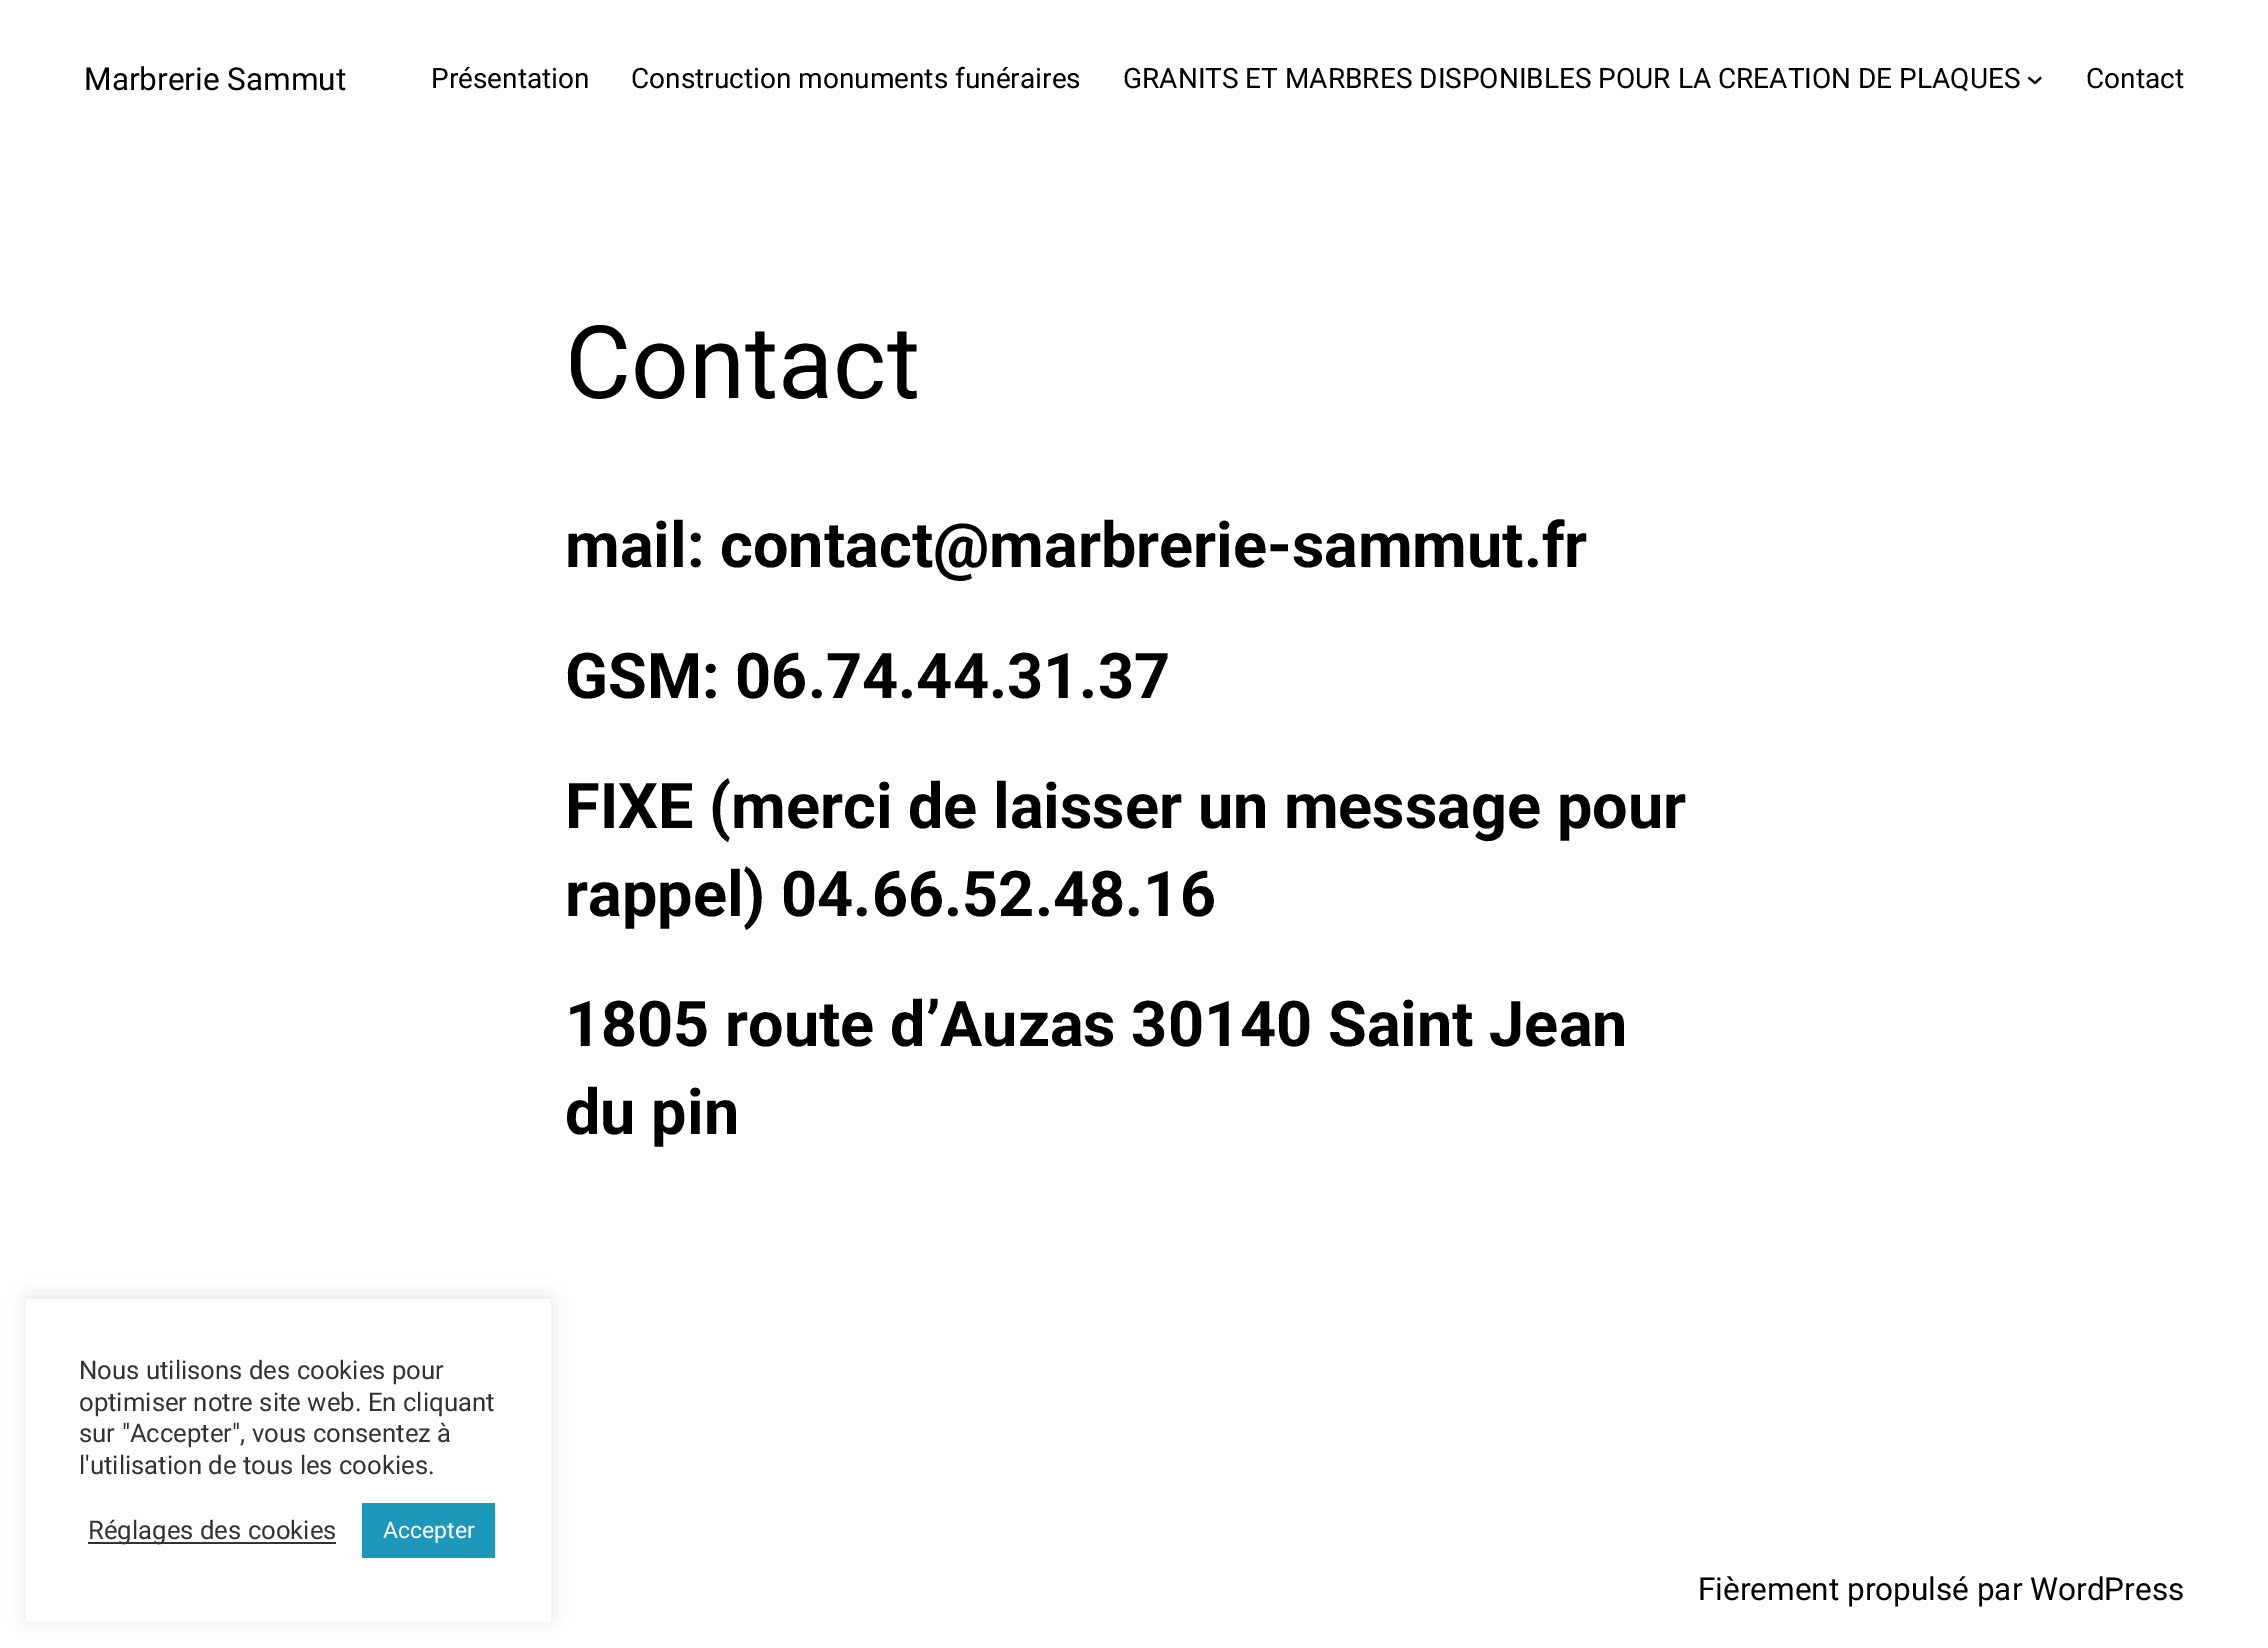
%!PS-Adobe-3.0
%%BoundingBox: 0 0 2268 1648
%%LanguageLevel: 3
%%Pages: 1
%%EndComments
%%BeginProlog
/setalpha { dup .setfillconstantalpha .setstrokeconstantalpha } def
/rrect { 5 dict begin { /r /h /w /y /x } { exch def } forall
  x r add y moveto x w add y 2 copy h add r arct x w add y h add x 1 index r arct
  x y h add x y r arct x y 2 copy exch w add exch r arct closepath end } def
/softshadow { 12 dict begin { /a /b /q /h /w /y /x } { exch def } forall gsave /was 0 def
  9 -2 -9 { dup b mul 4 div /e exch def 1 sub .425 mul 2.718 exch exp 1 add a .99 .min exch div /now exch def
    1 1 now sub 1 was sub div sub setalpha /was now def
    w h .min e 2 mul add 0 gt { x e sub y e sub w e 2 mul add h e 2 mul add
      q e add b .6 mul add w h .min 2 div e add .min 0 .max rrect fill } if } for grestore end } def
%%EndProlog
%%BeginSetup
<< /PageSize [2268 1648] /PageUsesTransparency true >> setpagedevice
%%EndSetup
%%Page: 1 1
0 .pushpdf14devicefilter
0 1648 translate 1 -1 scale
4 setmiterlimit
1 setgray
0 0 2268 1648 rectfill
0 setgray
2.1 setlinewidth
newpath 2028.5 77.5 moveto 2035 83 lineto 2041 77.5 lineto stroke
0.675 0.671 0.671 setrgbcolor
26 1297 525 324 0 9 0.3 softshadow
1 setgray
26 1299 525 323 rectfill
0.2 setgray
88 1542 248 2 rectfill
0.114 0.596 0.729 setrgbcolor
362 1503 133 55 rectfill
/Roboto-Regular [31.5 0 0 -31.5 0 0] selectfont
0 setgray
84 90 moveto (Marbrerie Sammut) show
/Roboto-Regular [28 0 0 -28 0 0] selectfont
431 88 moveto (Présentation) show
631 88 moveto (Construction monuments funéraires) show
1123 88 moveto (GRANITS ET MARBRES DISPONIBLES POUR LA CREATION DE PLAQUES) show
2086 88 moveto (Contact) show
/Roboto-Regular [101.5 0 0 -101.5 0 0] selectfont
565 398 moveto (Contact) show
/Roboto-Bold [63 0 0 -63 0 0] selectfont
565 567 moveto (mail: contact@marbrerie-sammut.fr) show
565 698 moveto (GSM: 06.74.44.31.37) show
565 828 moveto (FIXE \(merci de laisser un message pour) show
565 916 moveto (rappel\) 04.66.52.48.16) show
565 1046 moveto (1805 route d’Auzas 30140 Saint Jean) show
565 1134 moveto (du pin) show
/Roboto-Regular [31.5 0 0 -31.5 0 0] selectfont
1698 1600 moveto (Fièrement propulsé par WordPress) show
/Roboto-Regular [25.7 0 0 -25.7 0 0] selectfont
0.2 setgray
79 1379 moveto (Nous utilisons des cookies pour) show
79 1411 moveto (optimiser notre site web. En cliquant) show
79 1442 moveto (sur "Accepter", vous consentez à) show
79 1474 moveto (l'utilisation de tous les cookies.) show
88 1539 moveto (Réglages des cookies) show
/Roboto-Regular [23 0 0 -23 0 0] selectfont
1 setgray
383 1538 moveto (Accepter) show
.poppdf14devicefilter showpage
%%EOF
